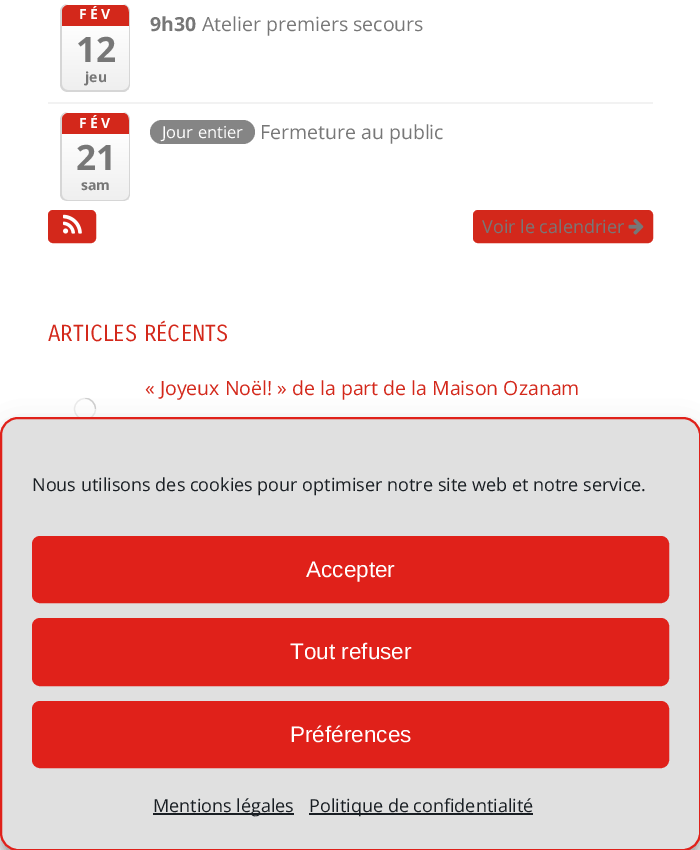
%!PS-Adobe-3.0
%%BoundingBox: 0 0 700 850
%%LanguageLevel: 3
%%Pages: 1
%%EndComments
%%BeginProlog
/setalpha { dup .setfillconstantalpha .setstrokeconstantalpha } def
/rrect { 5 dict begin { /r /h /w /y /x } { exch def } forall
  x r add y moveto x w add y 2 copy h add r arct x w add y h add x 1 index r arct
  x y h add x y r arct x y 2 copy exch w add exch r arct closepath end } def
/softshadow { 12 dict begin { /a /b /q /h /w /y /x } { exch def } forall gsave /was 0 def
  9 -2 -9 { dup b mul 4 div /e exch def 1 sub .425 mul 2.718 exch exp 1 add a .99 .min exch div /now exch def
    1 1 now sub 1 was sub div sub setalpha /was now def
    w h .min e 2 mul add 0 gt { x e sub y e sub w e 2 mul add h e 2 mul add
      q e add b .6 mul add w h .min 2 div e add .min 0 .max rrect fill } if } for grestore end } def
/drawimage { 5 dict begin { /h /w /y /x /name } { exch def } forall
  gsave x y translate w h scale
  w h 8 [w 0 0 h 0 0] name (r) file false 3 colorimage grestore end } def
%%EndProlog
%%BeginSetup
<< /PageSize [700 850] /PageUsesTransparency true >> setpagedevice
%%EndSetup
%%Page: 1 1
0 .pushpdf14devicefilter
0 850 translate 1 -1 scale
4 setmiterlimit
1 setgray
0 0 700 850 rectfill
gsave
60 5 71 87 8 rrect clip newpath
gsave newpath 62 5 moveto 129 5 lineto 129 90 lineto 62 90 lineto closepath clip newpath
<< /ShadingType 2 /ColorSpace /DeviceRGB /Coords [95 4.5 95 90] /Extend [true true] /Function << /FunctionType 3 /Domain [0 1] /Functions [<< /FunctionType 2 /Domain [0 1] /C0 [1 1 1] /C1 [1 1 1] /N 1 >> << /FunctionType 2 /Domain [0 1] /C0 [1 1 1] /C1 [0.937 0.937 0.937] /N 1 >>] /Bounds [0.21] /Encode [0 1 0 1] >> >> shfill grestore
grestore
0.839 setgray
newpath 68 4 moveto 123 4 lineto 127 4 130 8 130 12 curveto 130 84 lineto 130 88 127 92 123 92 curveto 68 92 lineto 63 92 60 88 60 84 curveto 60 12 lineto 60 8 63 4 68 4 curveto closepath 68 4 moveto 123 4 lineto 126 4 129 8 129 12 curveto 129 84 lineto 129 87 126 90 123 90 curveto 68 90 lineto 64 90 62 87 62 84 curveto 62 12 lineto 62 8 64 4 68 4 curveto closepath eofill
0.827 0.157 0.106 setrgbcolor
newpath 68 5 moveto 65 5 62 8 62 11 curveto 62 26 lineto 129 26 lineto 129 17 lineto 129 12 129 5 123 5 curveto closepath fill
0.949 setgray
48 102 605 2 rectfill
gsave
60 113 71 88 8 rrect clip newpath
gsave newpath 62 113 moveto 129 113 lineto 129 200 lineto 62 200 lineto closepath clip newpath
<< /ShadingType 2 /ColorSpace /DeviceRGB /Coords [95 113 95 200] /Extend [true true] /Function << /FunctionType 3 /Domain [0 1] /Functions [<< /FunctionType 2 /Domain [0 1] /C0 [1 1 1] /C1 [1 1 1] /N 1 >> << /FunctionType 2 /Domain [0 1] /C0 [1 1 1] /C1 [0.937 0.937 0.937] /N 1 >>] /Bounds [0.2] /Encode [0 1 0 1] >> >> shfill grestore
grestore
0.839 setgray
newpath 68 112 moveto 123 112 lineto 127 112 130 116 130 120 curveto 130 194 lineto 130 198 127 201 123 201 curveto 68 201 lineto 63 201 60 198 60 194 curveto 60 120 lineto 60 116 63 112 68 112 curveto closepath 68 112 moveto 123 112 lineto 126 112 129 116 129 120 curveto 129 194 lineto 129 197 126 200 123 200 curveto 68 200 lineto 64 200 62 197 62 194 curveto 62 120 lineto 62 116 64 112 68 112 curveto closepath eofill
0.827 0.157 0.106 setrgbcolor
newpath 68 113 moveto 65 113 62 116 62 119 curveto 62 134 lineto 129 134 lineto 129 125 lineto 129 120 129 113 123 113 curveto closepath fill
0.522 setgray
150 120 105 24 12 rrect fill
0.827 0.157 0.106 setrgbcolor
49 211 46 31 4 rrect gsave fill grestore
2 setlinewidth
stroke
(images/1.raw) 63 214 19 20 drawimage
474 211 178 31 4 rrect gsave fill grestore
stroke
(images/2.raw) 628 218 16 17 drawimage
0.925 setgray
1.2 setlinewidth
newpath 85 409 10.5 0 360 arc closepath stroke
gsave
74 398 22 22 rectclip
0.25 setalpha
0.467 setgray
newpath 95.5 409 moveto 95.5 403 90.5 398 85 398 curveto stroke
grestore
0 setgray
0 426 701 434 18 4.5 0.23 softshadow
0 432 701 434 18 15 0.19 softshadow
0.878 setgray
1 418 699 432 17 rrect gsave fill grestore
0.878 0.129 0.102 setrgbcolor
2 setlinewidth
stroke
33 537 635 65 7 rrect gsave fill grestore
stroke
33 619 635 66 7 rrect gsave fill grestore
stroke
33 702 635 65 7 rrect gsave fill grestore
stroke
0.098 0.118 0.137 setrgbcolor
153 813 141 2 rectfill
309 813 224 2 rectfill
/OpenSans-Bold [14 0 0 -14 0 0] selectfont
1 setgray
79 19 moveto 3 0 (FÉV) ashow
/OpenSans-Bold [35 0 0 -35 0 0] selectfont
0.467 setgray
76 62 moveto (12) show
/OpenSans-Bold [14 0 0 -14 0 0] selectfont
85 82 moveto (jeu) show
/OpenSans-Bold [19.5 0 0 -19.5 0 0] selectfont
150 31 moveto (9h30) show
/OpenSans-Regular [19.5 0 0 -19.5 0 0] selectfont
202 31 moveto (Atelier premiers secours) show
/OpenSans-Bold [14 0 0 -14 0 0] selectfont
1 setgray
79 128 moveto 3 0 (FÉV) ashow
/OpenSans-Bold [35 0 0 -35 0 0] selectfont
0.467 setgray
76 170 moveto (21) show
/OpenSans-Bold [14 0 0 -14 0 0] selectfont
81 190 moveto (sam) show
/OpenSans-Regular [16.5 0 0 -16.5 0 0] selectfont
1 setgray
162 138 moveto (Jour entier) show
/OpenSans-Regular [19.5 0 0 -19.5 0 0] selectfont
0.467 setgray
260 139 moveto (Fermeture au public) show
/OpenSans-Regular [18 0 0 -18 0 0] selectfont
482 233 moveto (Voir le calendrier) show
/CarroisGothic-Regular [22.5 0 0 -22.5 0 0] selectfont
0.827 0.157 0.106 setrgbcolor
48 341 moveto (ARTICLES RÉCENTS) show
/OpenSans-Regular [19.5 0 0 -19.5 0 0] selectfont
145 395 moveto (« Joyeux Noël! » de la part de la Maison Ozanam) show
/OpenSans-Regular [18 0 0 -18 0 0] selectfont
0.098 0.118 0.137 setrgbcolor
32 491 moveto (Nous utilisons des cookies pour optimiser notre site web et notre service.) show
/LiberationSans-Regular [22.5 0 0 -22.5 0 0] selectfont
1 setgray
306 577 moveto (Accepter) show
290 659 moveto (Tout refuser) show
290 742 moveto (Préférences) show
/OpenSans-Regular [18 0 0 -18 0 0] selectfont
0.098 0.118 0.137 setrgbcolor
153 812 moveto (Mentions légales) show
309 812 moveto (Politique de confidentialité) show
.poppdf14devicefilter showpage
%%EOF
